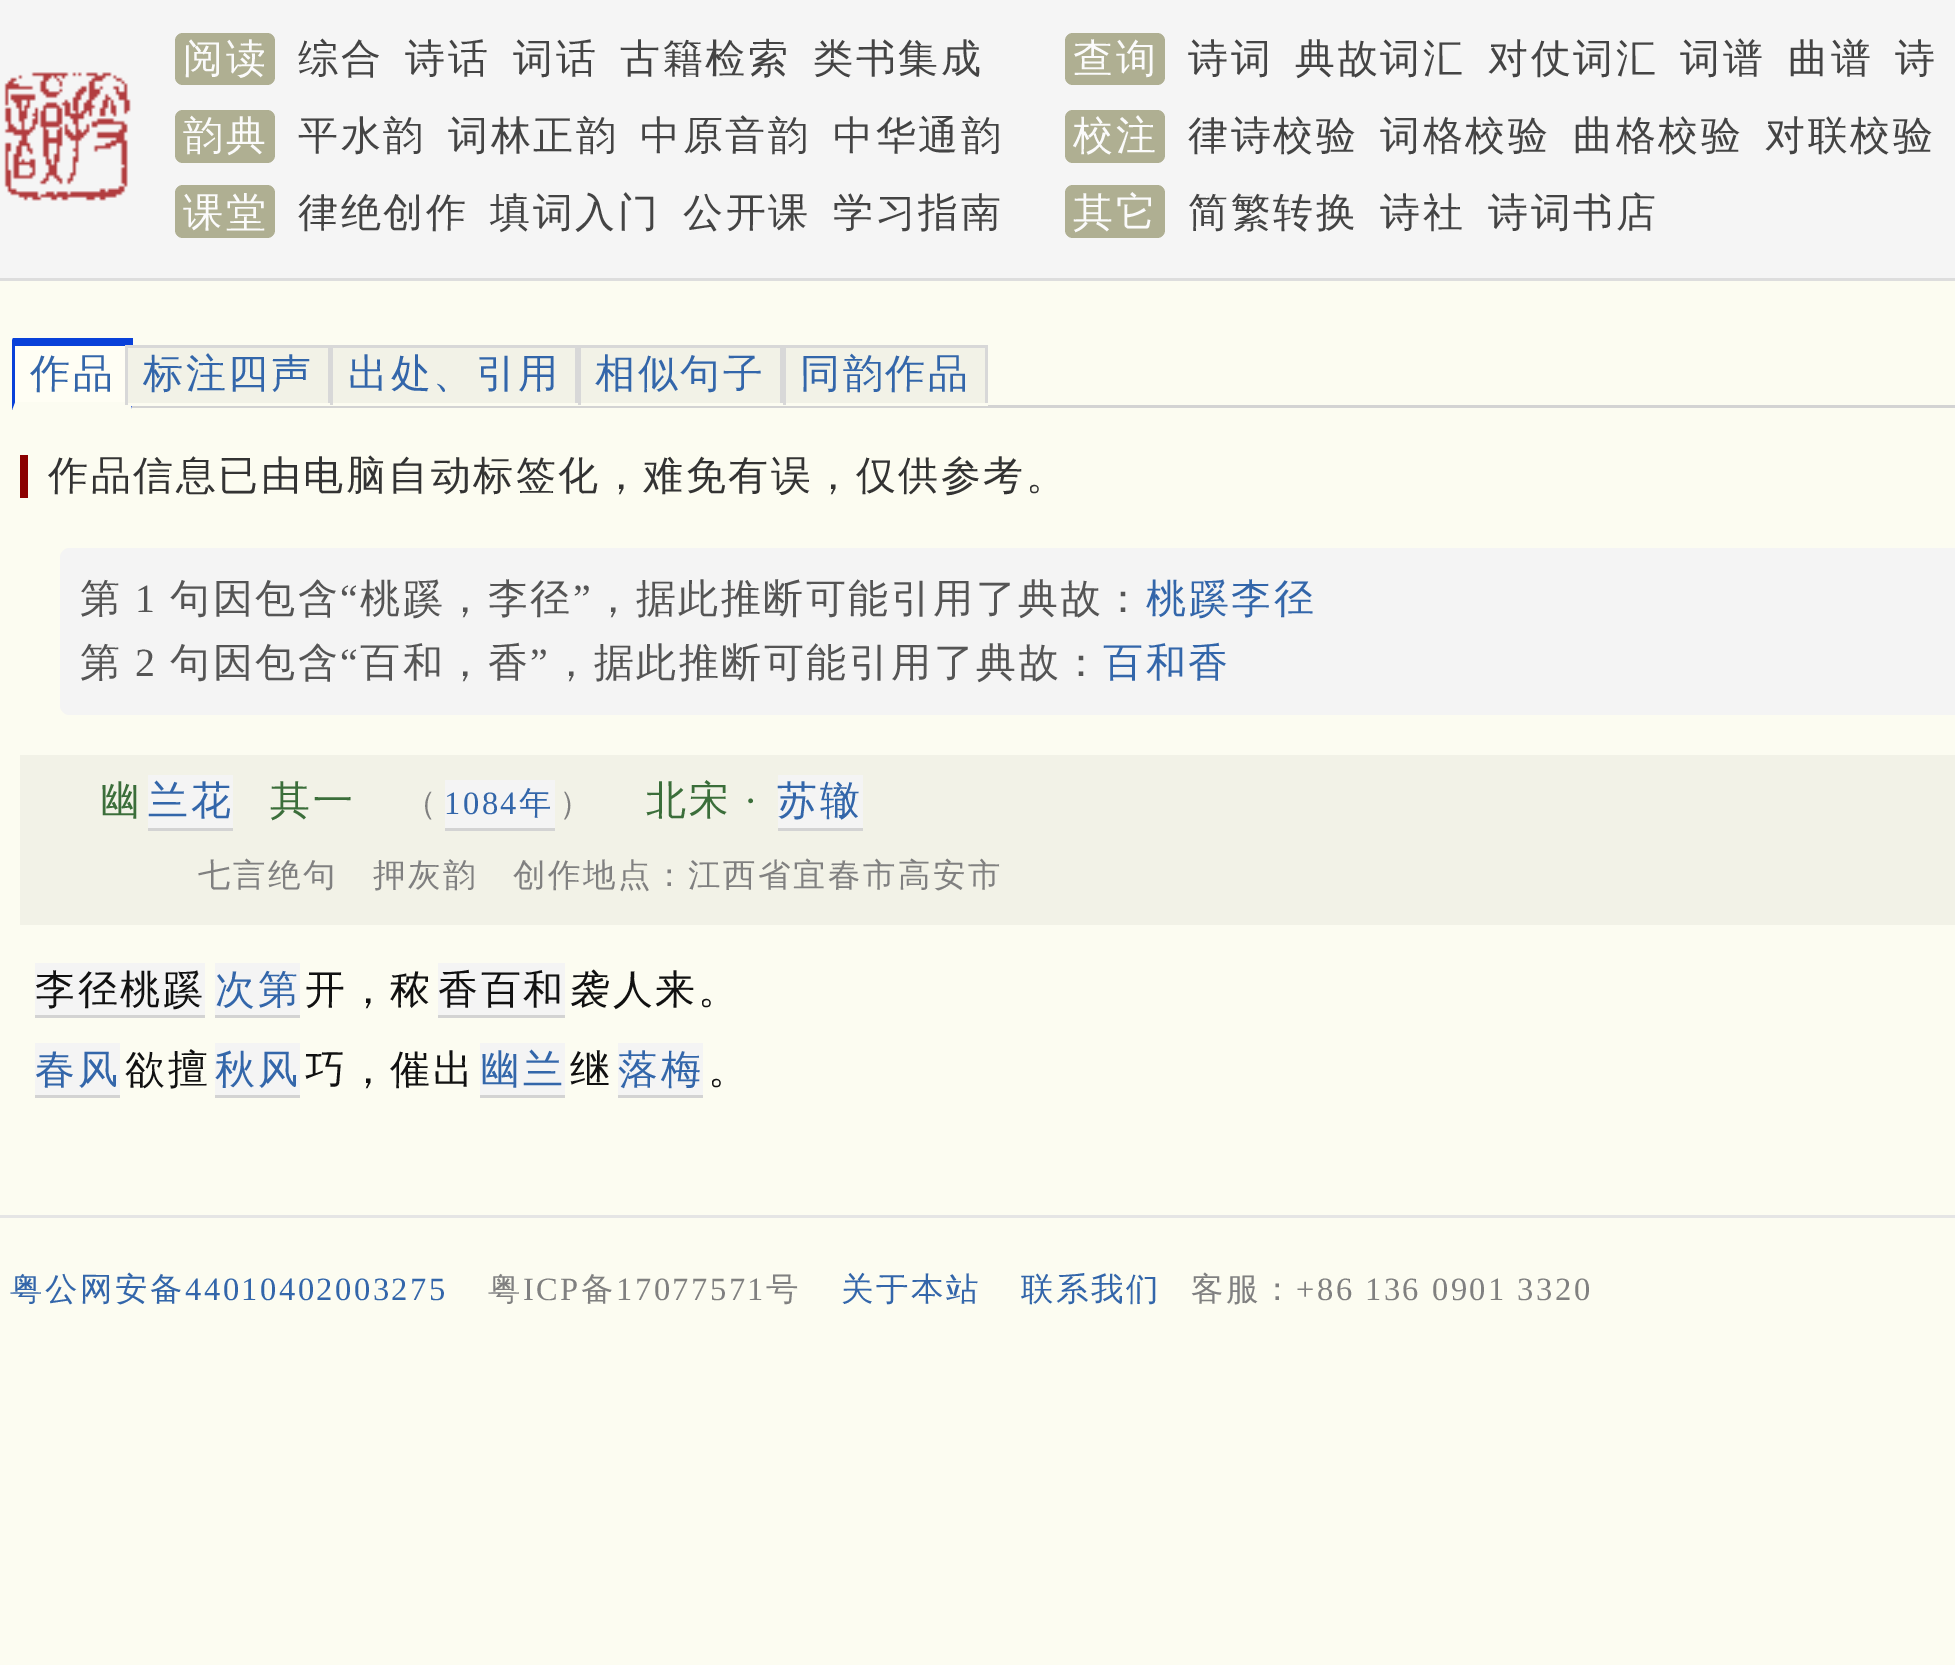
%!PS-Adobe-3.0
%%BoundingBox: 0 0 1955 1665
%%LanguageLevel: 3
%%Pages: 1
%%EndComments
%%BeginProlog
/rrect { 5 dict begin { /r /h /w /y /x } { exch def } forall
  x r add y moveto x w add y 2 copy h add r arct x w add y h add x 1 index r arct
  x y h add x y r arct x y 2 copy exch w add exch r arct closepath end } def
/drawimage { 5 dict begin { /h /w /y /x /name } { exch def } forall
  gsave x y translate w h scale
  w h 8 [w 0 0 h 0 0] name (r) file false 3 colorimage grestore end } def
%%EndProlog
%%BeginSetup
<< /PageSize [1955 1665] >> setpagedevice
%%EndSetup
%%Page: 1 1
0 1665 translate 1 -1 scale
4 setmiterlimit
0.988 0.988 0.945 setrgbcolor
0 0 1955 1665 rectfill
0.961 setgray
0 0 1955 278 rectfill
0.867 setgray
0 278 1955 3 rectfill
0.686 0.686 0.573 setrgbcolor
175 33 100 52 8 rrect fill
1065 33 100 52 8 rrect fill
(images/1.raw) 4 72 127 129 drawimage
175 110 100 53 8 rrect fill
1065 110 100 53 8 rrect fill
175 185 100 53 8 rrect fill
1065 185 100 53 8 rrect fill
0.827 setgray
131 405 1824 3 rectfill
1 0.996 0.957 setrgbcolor
15 346 110 56 rectfill
0.035 0.255 0.851 setrgbcolor
13 338 120 8 rectfill
newpath 132 338 moveto 132 410 lineto 130 402 lineto 130 345 lineto closepath fill
0.988 0.988 0.945 setrgbcolor
newpath 132 410 moveto 12 410 lineto 15 402 lineto 130 402 lineto closepath fill
0.035 0.255 0.851 setrgbcolor
newpath 12 410 moveto 12 338 lineto 15 345 lineto 15 402 lineto closepath fill
0.949 0.949 0.906 setrgbcolor
128 348 200 55 rectfill
0.847 setgray
125 345 863 3 rectfill
328 345 2 60 rectfill
0.988 0.988 0.945 setrgbcolor
125 403 205 3 rectfill
0.847 setgray
125 345 3 60 rectfill
0.949 0.949 0.906 setrgbcolor
333 348 242 55 rectfill
0.847 setgray
575 345 3 60 rectfill
0.988 0.988 0.945 setrgbcolor
330 403 248 3 rectfill
0.847 setgray
330 345 3 60 rectfill
0.949 0.949 0.906 setrgbcolor
581 348 199 55 rectfill
0.847 setgray
780 345 3 60 rectfill
0.988 0.988 0.945 setrgbcolor
578 403 205 3 rectfill
0.847 setgray
578 345 3 60 rectfill
0.949 0.949 0.906 setrgbcolor
786 348 199 55 rectfill
0.847 setgray
985 345 3 60 rectfill
0.988 0.988 0.945 setrgbcolor
783 403 205 3 rectfill
0.847 setgray
783 345 3 60 rectfill
0.545 0 0 setrgbcolor
20 455 8 43 rectfill
0.957 setgray
60 548 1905 167 10 rrect fill
0.949 0.949 0.906 setrgbcolor
20 755 1935 170 rectfill
0.957 setgray
148 775 85 53 rectfill
0.827 setgray
148 828 85 3 rectfill
0.957 setgray
445 780 110 48 rectfill
0.827 setgray
445 828 110 3 rectfill
0.957 setgray
778 775 85 53 rectfill
0.827 setgray
778 828 85 3 rectfill
0.957 setgray
35 963 170 52 rectfill
0.827 setgray
35 1015 170 3 rectfill
0.957 setgray
215 963 85 52 rectfill
0.827 setgray
215 1015 85 3 rectfill
0.957 setgray
438 963 127 52 rectfill
0.827 setgray
438 1015 127 3 rectfill
0.957 setgray
35 1043 85 52 rectfill
0.827 setgray
35 1095 85 3 rectfill
0.957 setgray
215 1043 85 52 rectfill
0.827 setgray
215 1095 85 3 rectfill
0.957 setgray
480 1043 85 52 rectfill
0.827 setgray
480 1095 85 3 rectfill
0.957 setgray
618 1043 85 52 rectfill
0.827 setgray
618 1095 85 3 rectfill
0.898 setgray
0 1215 1955 3 rectfill
/WenQuanYiZenHei-Medium [40 0 0 -40 0 0] selectfont
0.984 setgray
183 72 moveto 2.5 0 (阅读) ashow
0.267 setgray
298 72 moveto 2.5 0 (综合) ashow
405 72 moveto 2.5 0 (诗话) ashow
513 72 moveto 2.5 0 (词话) ashow
620 72 moveto 2.5 0 (古籍检索) ashow
813 72 moveto 2.5 0 (类书集成) ashow
0.984 setgray
1073 72 moveto 2.5 0 (查询) ashow
0.267 setgray
1188 72 moveto 2.5 0 (诗词) ashow
1295 72 moveto 2.5 0 (典故词汇) ashow
1488 72 moveto 2.5 0 (对仗词汇) ashow
1680 72 moveto 2.5 0 (词谱) ashow
1788 72 moveto 2.5 0 (曲谱) ashow
1895 72 moveto 2.5 0 (诗) ashow
0.984 setgray
183 149 moveto 2.5 0 (韵典) ashow
0.267 setgray
298 149 moveto 2.5 0 (平水韵) ashow
448 149 moveto 2.5 0 (词林正韵) ashow
640 149 moveto 2.5 0 (中原音韵) ashow
833 149 moveto 2.5 0 (中华通韵) ashow
0.984 setgray
1073 149 moveto 2.5 0 (校注) ashow
0.267 setgray
1188 149 moveto 2.5 0 (律诗校验) ashow
1380 149 moveto 2.5 0 (词格校验) ashow
1573 149 moveto 2.5 0 (曲格校验) ashow
1765 149 moveto 2.5 0 (对联校验) ashow
0.984 setgray
183 226 moveto 2.5 0 (课堂) ashow
0.267 setgray
298 226 moveto 2.5 0 (律绝创作) ashow
490 226 moveto 2.5 0 (填词入门) ashow
683 226 moveto 2.5 0 (公开课) ashow
833 226 moveto 2.5 0 (学习指南) ashow
0.984 setgray
1073 226 moveto 2.5 0 (其它) ashow
0.267 setgray
1188 226 moveto 2.5 0 (简繁转换) ashow
1380 226 moveto 2.5 0 (诗社) ashow
1488 226 moveto 2.5 0 (诗词书店) ashow
0.2 0.4 0.667 setrgbcolor
30 387 moveto 2.5 0 (作品) ashow
143 387 moveto 2.5 0 (标注四声) ashow
348 387 moveto 2.5 0 (出处、引用) ashow
595 387 moveto 2.5 0 (相似句子) ashow
800 387 moveto 2.5 0 (同韵作品) ashow
0.2 setgray
48 489 moveto 2.5 0 (作品信息已由电脑自动标签化，难免有误，仅供参考。) ashow
0.333 setgray
80 612 moveto 2.5 0 (第) ashow
/LiberationSerif-Regular [40 0 0 -40 0 0] selectfont
135 612 moveto 2.5 0 (1) ashow
/WenQuanYiZenHei-Medium [40 0 0 -40 0 0] selectfont
170 612 moveto 2.5 0 (句因包含) ashow
/LiberationSerif-Regular [40 0 0 -40 0 0] selectfont
340 612 moveto 2.5 0 (“) ashow
/WenQuanYiZenHei-Medium [40 0 0 -40 0 0] selectfont
360 612 moveto 2.5 0 (桃蹊，李径) ashow
/LiberationSerif-Regular [40 0 0 -40 0 0] selectfont
573 612 moveto 2.5 0 (”) ashow
/WenQuanYiZenHei-Medium [40 0 0 -40 0 0] selectfont
593 612 moveto 2.5 0 (，据此推断可能引用了典故：) ashow
0.2 0.4 0.667 setrgbcolor
1146 612 moveto 2.5 0 (桃蹊李径) ashow
0.333 setgray
80 676 moveto 2.5 0 (第) ashow
/LiberationSerif-Regular [40 0 0 -40 0 0] selectfont
135 676 moveto 2.5 0 (2) ashow
/WenQuanYiZenHei-Medium [40 0 0 -40 0 0] selectfont
170 676 moveto 2.5 0 (句因包含) ashow
/LiberationSerif-Regular [40 0 0 -40 0 0] selectfont
340 676 moveto 2.5 0 (“) ashow
/WenQuanYiZenHei-Medium [40 0 0 -40 0 0] selectfont
360 676 moveto 2.5 0 (百和，香) ashow
/LiberationSerif-Regular [40 0 0 -40 0 0] selectfont
530 676 moveto 2.5 0 (”) ashow
/WenQuanYiZenHei-Medium [40 0 0 -40 0 0] selectfont
551 676 moveto 2.5 0 (，据此推断可能引用了典故：) ashow
0.2 0.4 0.667 setrgbcolor
1103 676 moveto 2.5 0 (百和香) ashow
0.231 0.431 0.227 setrgbcolor
100 814 moveto 2.5 0 (幽) ashow
0.2 0.4 0.667 setrgbcolor
148 814 moveto 2.5 0 (兰花) ashow
0.231 0.431 0.227 setrgbcolor
270 814 moveto 2.5 0 (其一) ashow
/WenQuanYiZenHei-Medium [32.5 0 0 -32.5 0 0] selectfont
0.502 setgray
404 814 moveto 2.5 0 (（) ashow
/LiberationSerif-Regular [32.5 0 0 -32.5 0 0] selectfont
0.2 0.4 0.667 setrgbcolor
444 814 moveto 2.5 0 (1084) ashow
/WenQuanYiZenHei-Medium [32.5 0 0 -32.5 0 0] selectfont
519 814 moveto 2.5 0 (年) ashow
0.502 setgray
559 814 moveto 2.5 0 (）) ashow
/WenQuanYiZenHei-Medium [40 0 0 -40 0 0] selectfont
0.231 0.431 0.227 setrgbcolor
646 814 moveto 2.5 0 (北宋) ashow
/LiberationSerif-Regular [40 0 0 -40 0 0] selectfont
744 814 moveto 2.5 0 (·) ashow
/WenQuanYiZenHei-Medium [40 0 0 -40 0 0] selectfont
0.2 0.4 0.667 setrgbcolor
777 814 moveto 2.5 0 (苏辙) ashow
/WenQuanYiZenHei-Medium [32.5 0 0 -32.5 0 0] selectfont
0.502 setgray
198 886 moveto 2.5 0 (七言绝句　押灰韵　创作地点：江西省宜春市高安市) ashow
/WenQuanYiZenHei-Medium [40 0 0 -40 0 0] selectfont
0.067 setgray
35 1003 moveto 2.5 0 (李径桃蹊) ashow
0.2 0.4 0.667 setrgbcolor
215 1003 moveto 2.5 0 (次第) ashow
0.067 setgray
305 1003 moveto 2.5 0 (开，秾) ashow
438 1003 moveto 2.5 0 (香百和) ashow
570 1003 moveto 2.5 0 (袭人来。) ashow
0.2 0.4 0.667 setrgbcolor
35 1083 moveto 2.5 0 (春风) ashow
0.067 setgray
125 1083 moveto 2.5 0 (欲擅) ashow
0.2 0.4 0.667 setrgbcolor
215 1083 moveto 2.5 0 (秋风) ashow
0.067 setgray
305 1083 moveto 2.5 0 (巧，催出) ashow
0.2 0.4 0.667 setrgbcolor
480 1083 moveto 2.5 0 (幽兰) ashow
0.067 setgray
570 1083 moveto 2.5 0 (继) ashow
0.2 0.4 0.667 setrgbcolor
618 1083 moveto 2.5 0 (落梅) ashow
0.067 setgray
708 1083 moveto 2.5 0 (。) ashow
/WenQuanYiZenHei-Medium [32.5 0 0 -32.5 0 0] selectfont
0.2 0.4 0.667 setrgbcolor
10 1300 moveto 2.5 0 (粤公网安备) ashow
/LiberationSerif-Regular [32.5 0 0 -32.5 0 0] selectfont
185 1300 moveto 2.5 0 (44010402003275) ashow
/WenQuanYiZenHei-Medium [32.5 0 0 -32.5 0 0] selectfont
0.502 setgray
488 1300 moveto 2.5 0 (粤) ashow
/LiberationSerif-Regular [32.5 0 0 -32.5 0 0] selectfont
523 1300 moveto 2.5 0 (ICP) ashow
/WenQuanYiZenHei-Medium [32.5 0 0 -32.5 0 0] selectfont
581 1300 moveto 2.5 0 (备) ashow
/LiberationSerif-Regular [32.5 0 0 -32.5 0 0] selectfont
616 1300 moveto 2.5 0 (17077571) ashow
/WenQuanYiZenHei-Medium [32.5 0 0 -32.5 0 0] selectfont
766 1300 moveto 2.5 0 (号) ashow
0.2 0.4 0.667 setrgbcolor
841 1300 moveto 2.5 0 (关于本站) ashow
1021 1300 moveto 2.5 0 (联系我们) ashow
0.502 setgray
1191 1300 moveto 2.5 0 (客服：) ashow
/LiberationSerif-Regular [32.5 0 0 -32.5 0 0] selectfont
1296 1300 moveto 2.5 0 (+86 136 0901 3320) ashow
showpage
%%EOF
